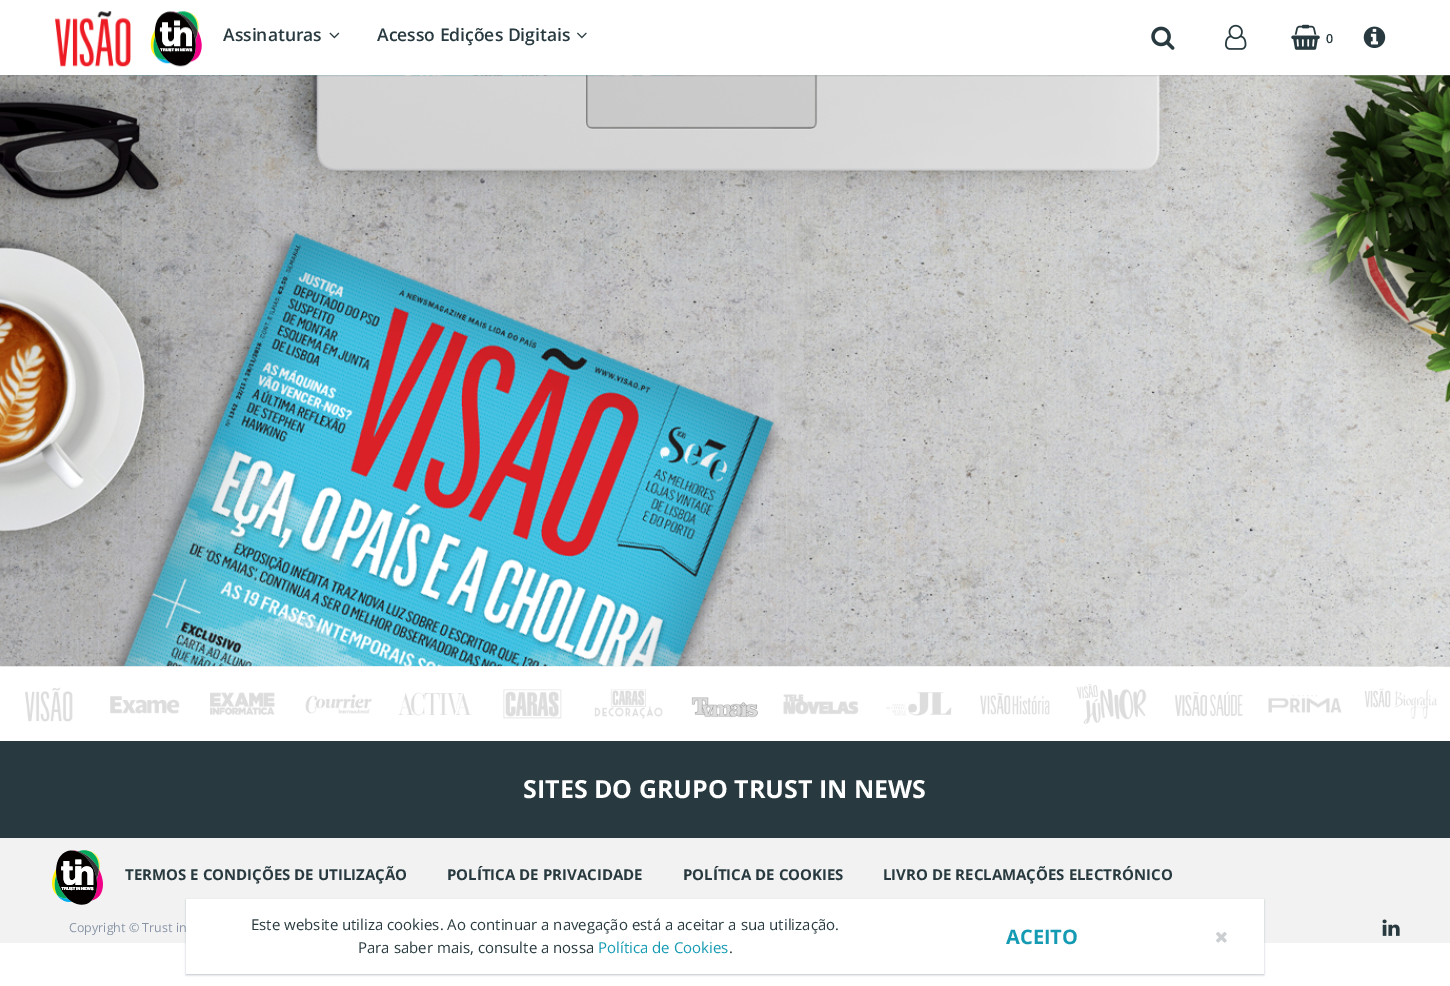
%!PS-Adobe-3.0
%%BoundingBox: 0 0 1450 986
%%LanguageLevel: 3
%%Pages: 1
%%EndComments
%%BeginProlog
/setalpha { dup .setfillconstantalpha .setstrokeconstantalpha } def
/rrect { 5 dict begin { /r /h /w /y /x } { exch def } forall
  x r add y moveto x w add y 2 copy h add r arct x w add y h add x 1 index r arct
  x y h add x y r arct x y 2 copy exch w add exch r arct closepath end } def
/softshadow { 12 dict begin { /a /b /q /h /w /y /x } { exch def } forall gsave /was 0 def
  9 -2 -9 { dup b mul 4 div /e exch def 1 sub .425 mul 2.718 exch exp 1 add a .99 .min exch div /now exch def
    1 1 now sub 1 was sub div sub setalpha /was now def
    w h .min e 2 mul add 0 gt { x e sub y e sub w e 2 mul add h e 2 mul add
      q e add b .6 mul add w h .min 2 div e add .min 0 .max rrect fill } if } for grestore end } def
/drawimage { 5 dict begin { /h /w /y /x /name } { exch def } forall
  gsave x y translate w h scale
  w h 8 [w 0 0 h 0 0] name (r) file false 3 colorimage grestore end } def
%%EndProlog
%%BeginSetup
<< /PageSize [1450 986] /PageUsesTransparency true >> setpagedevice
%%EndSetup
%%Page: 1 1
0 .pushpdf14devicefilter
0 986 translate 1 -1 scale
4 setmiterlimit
1 setgray
0 0 1450 986 rectfill
(images/9.raw) 0 75 1450 592 drawimage
gsave
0 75 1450 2 rectclip
0.157 0.227 0.247 setrgbcolor
0 1 1450 75 0 1 0.15 softshadow
grestore
(images/1.raw) 55 11 76 56 drawimage
(images/2.raw) 150 11 52 56 drawimage
(images/3.raw) 329 32 11 7 drawimage
(images/4.raw) 577 32 10 7 drawimage
(images/5.raw) 1151 26 24 24 drawimage
(images/6.raw) 1225 24 22 26 drawimage
(images/7.raw) 1291 24 29 26 drawimage
(images/8.raw) 1363 26 23 22 drawimage
(images/10.raw) 25 687 48 35 drawimage
(images/11.raw) 110 696 70 18 drawimage
(images/12.raw) 210 692 65 23 drawimage
(images/13.raw) 305 694 67 20 drawimage
(images/14.raw) 398 692 74 24 drawimage
(images/15.raw) 503 689 59 30 drawimage
(images/16.raw) 594 689 69 30 drawimage
(images/17.raw) 691 697 67 21 drawimage
(images/18.raw) 783 694 76 21 drawimage
(images/19.raw) 886 692 66 24 drawimage
(images/20.raw) 980 693 70 22 drawimage
(images/21.raw) 1076 684 71 40 drawimage
(images/22.raw) 1175 691 68 26 drawimage
(images/23.raw) 1268 695 74 18 drawimage
(images/24.raw) 1364 688 73 31 drawimage
0.157 0.227 0.247 setrgbcolor
0 741 1450 97 rectfill
0.949 setgray
0 838 1450 105 rectfill
(images/25.raw) 52 850 51 55 drawimage
(images/26.raw) 1382 919 18 17 drawimage
0.157 0.227 0.247 setrgbcolor
186 900 1078 75 0 1 0.3 softshadow
1 setgray
186 899 1078 75 rectfill
(images/27.raw) 1216 932 11 11 drawimage
/OpenSans-SemiBold [17.5 0 0 -17.5 0 0] selectfont
0.157 0.227 0.247 setrgbcolor
223 41 moveto (Assinaturas) show
377 41 moveto (Acesso Edições Digitais) show
/OpenSans-SemiBold [12.5 0 0 -12.5 0 0] selectfont
1326 43 moveto (0) show
/OpenSans-Bold [25 0 0 -25 0 0] selectfont
1 setgray
523 798 moveto (SITES DO GRUPO TRUST IN NEWS) show
/OpenSans-Bold [15 0 0 -15 0 0] selectfont
0.157 0.227 0.247 setrgbcolor
125 880 moveto (TERMOS E CONDIÇÕES DE UTILIZAÇÃO) show
447 880 moveto (POLÍTICA DE PRIVACIDADE) show
683 880 moveto (POLÍTICA DE COOKIES) show
883 880 moveto (LIVRO DE RECLAMAÇÕES ELECTRÓNICO) show
/OpenSans-Regular [12.5 0 0 -12.5 0 0] selectfont
0.533 0.58 0.651 setrgbcolor
69 932 moveto (Copyright © Trust in) show
/OpenSans-Regular [15 0 0 -15 0 0] selectfont
0.157 0.227 0.247 setrgbcolor
251 930 moveto (Este website utiliza cookies. Ao continuar a navegação está a aceitar a sua utilização.) show
358 953 moveto (Para saber mais, consulte a nossa) show
0.082 0.604 0.702 setrgbcolor
598 953 moveto (Política de Cookies) show
0.157 0.227 0.247 setrgbcolor
729 953 moveto (.) show
/OpenSans-Bold [20 0 0 -20 0 0] selectfont
0.082 0.604 0.702 setrgbcolor
1006 944 moveto (ACEITO) show
.poppdf14devicefilter showpage
%%EOF
